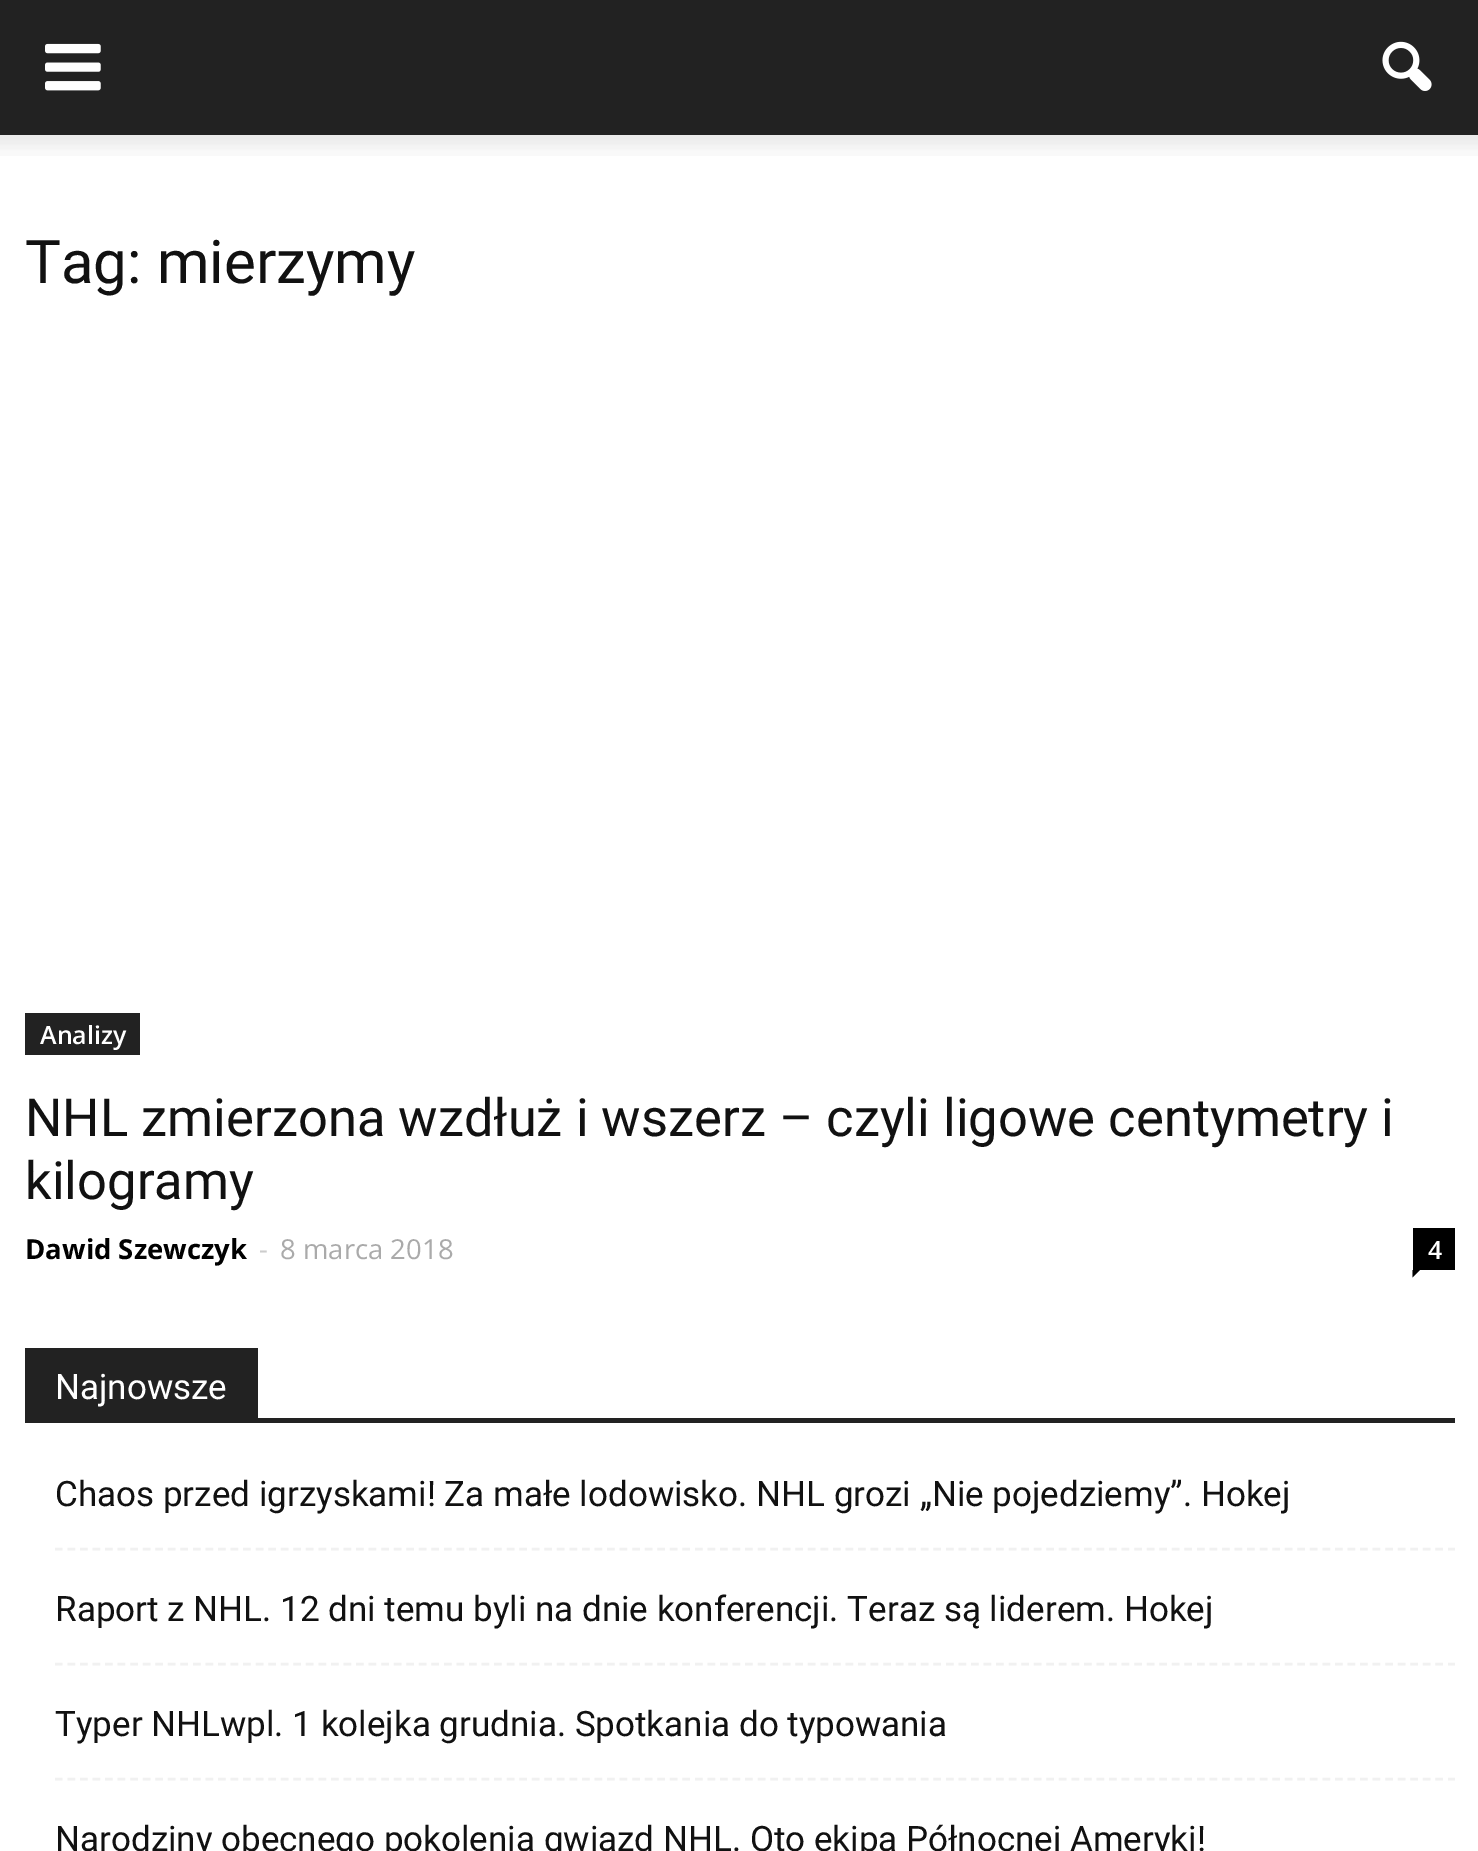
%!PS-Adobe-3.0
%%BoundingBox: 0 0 1478 1851
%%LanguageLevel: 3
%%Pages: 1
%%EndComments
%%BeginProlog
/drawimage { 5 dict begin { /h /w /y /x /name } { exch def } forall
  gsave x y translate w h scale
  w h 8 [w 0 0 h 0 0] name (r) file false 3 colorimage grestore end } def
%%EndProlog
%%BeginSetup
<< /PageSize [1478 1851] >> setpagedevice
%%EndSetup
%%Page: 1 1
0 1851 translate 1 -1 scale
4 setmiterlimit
1 setgray
0 0 1478 1851 rectfill
0.133 setgray
0 0 1478 135 rectfill
(images/1.raw) 45 43 56 48 drawimage
(images/2.raw) 1382 41 50 50 drawimage
(images/3.raw) 0 135 1478 21 drawimage
25 1013 115 42 rectfill
0 setgray
1413 1228 42 42 rectfill
newpath 1412.5 1270 moveto 1420 1270 lineto 1412.5 1277.5 lineto closepath fill
0.133 setgray
25 1418 1430 5 rectfill
25 1348 233 70 rectfill
0.945 setgray
2.5 setlinewidth
[7.5 5.05] 0 setdash
newpath 55 1549 moveto 1455 1549 lineto stroke
newpath 55 1664 moveto 1455 1664 lineto stroke
newpath 55 1779 moveto 1455 1779 lineto stroke
/Roboto-Regular [60 0 0 -60 0 0] selectfont
0.067 setgray
25 283 moveto (Tag: mierzymy) show
/OpenSans-SemiBold [25 0 0 -25 0 0] selectfont
1 setgray
40 1044 moveto (Analizy) show
/Roboto-Regular [52.5 0 0 -52.5 0 0] selectfont
0.067 setgray
25 1136 moveto (NHL zmierzona wzdłuż i wszerz – czyli ligowe centymetry i) show
25 1199 moveto (kilogramy) show
/OpenSans-Bold [27.5 0 0 -27.5 0 0] selectfont
0 setgray
25 1259 moveto (Dawid Szewczyk) show
/OpenSans-Regular [27.5 0 0 -27.5 0 0] selectfont
0.8 setgray
259 1259 moveto (-) show
0.667 setgray
280 1259 moveto (8 marca 2018) show
/OpenSans-SemiBold [25 0 0 -25 0 0] selectfont
1 setgray
1428 1259 moveto (4) show
/Roboto-Regular [35 0 0 -35 0 0] selectfont
55 1399 moveto (Najnowsze) show
0.067 setgray
55 1506 moveto (Chaos przed igrzyskami! Za małe lodowisko. NHL grozi „Nie pojedziemy”. Hokej) show
55 1621 moveto (Raport z NHL. 12 dni temu byli na dnie konferencji. Teraz są liderem. Hokej) show
55 1736 moveto (Typer NHLwpl. 1 kolejka grudnia. Spotkania do typowania) show
55 1851 moveto (Narodziny obecnego pokolenia gwiazd NHL. Oto ekipa Północnej Ameryki!) show
showpage
%%EOF
